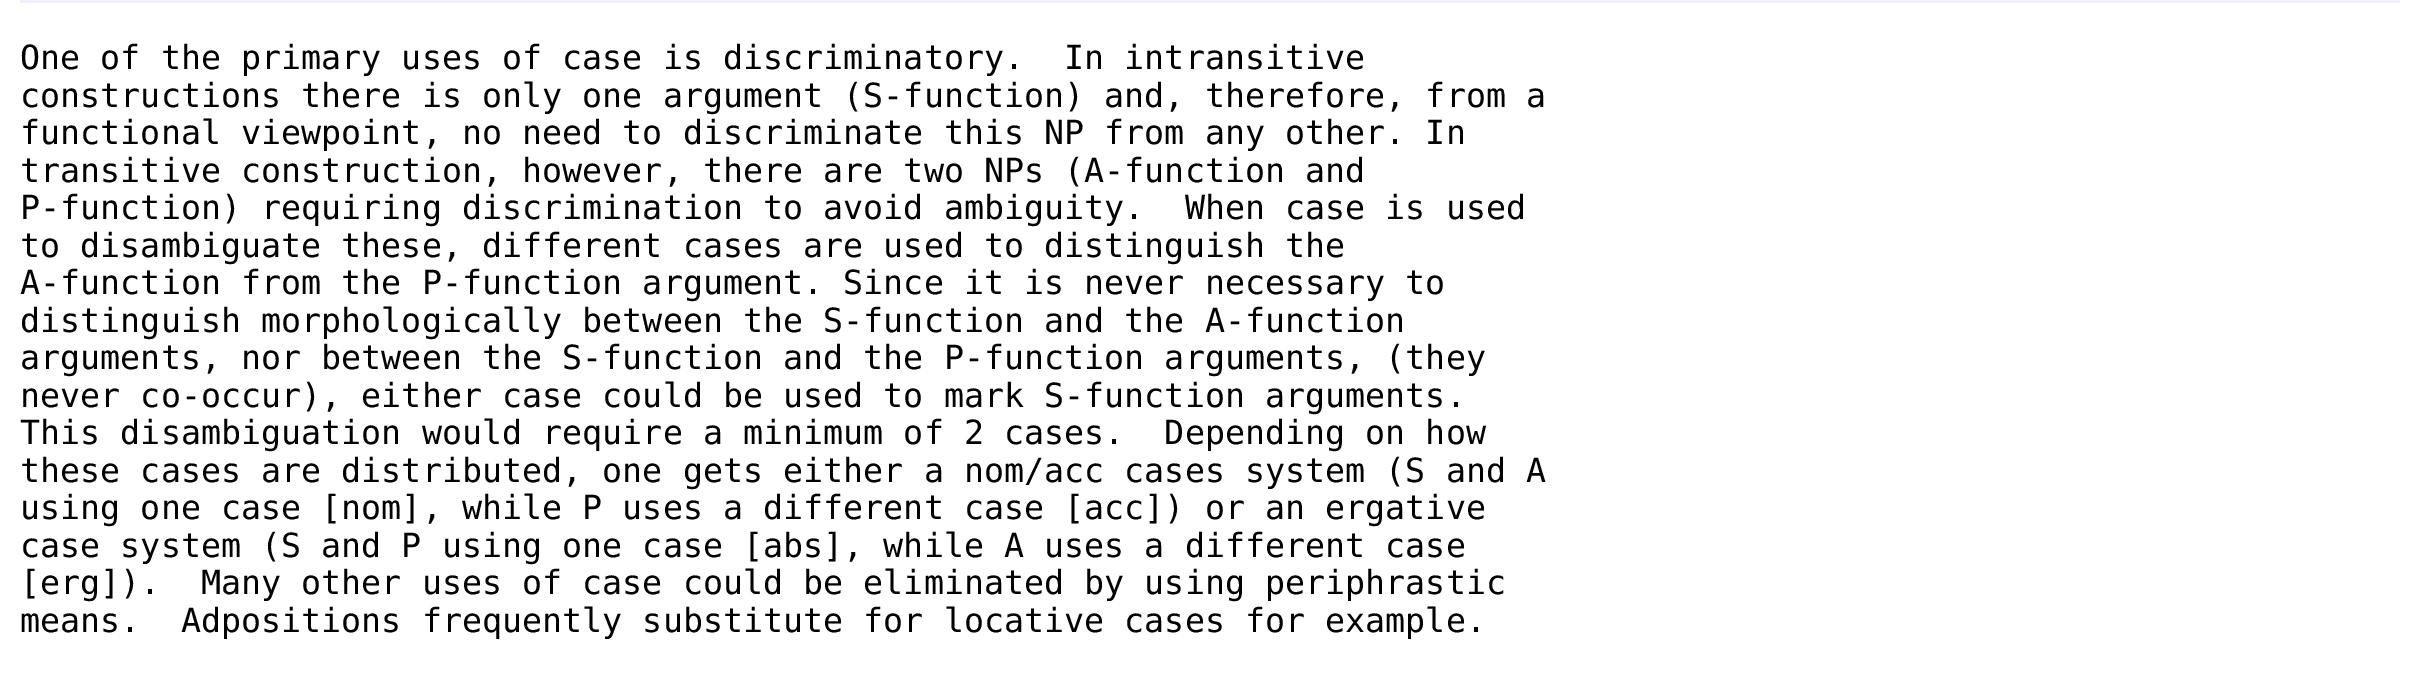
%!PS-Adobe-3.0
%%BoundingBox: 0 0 2420 687
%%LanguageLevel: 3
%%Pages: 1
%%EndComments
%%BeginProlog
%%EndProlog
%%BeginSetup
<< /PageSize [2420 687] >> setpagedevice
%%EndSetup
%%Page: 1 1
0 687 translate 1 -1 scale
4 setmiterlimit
1 setgray
0 0 2420 687 rectfill
0.937 0.937 1 setrgbcolor
20 0 2380 3 rectfill
/DejaVuSansMono-Regular [33.35 0 0 -33.35 0 0] selectfont
0 setgray
20 69 moveto (One of the primary uses of case is discriminatory.  In intransitive) show
20 107 moveto (constructions there is only one argument \(S-function\) and, therefore, from a) show
20 144 moveto (functional viewpoint, no need to discriminate this NP from any other. In) show
20 182 moveto (transitive construction, however, there are two NPs \(A-function and) show
20 219 moveto (P-function\) requiring discrimination to avoid ambiguity.  When case is used) show
20 257 moveto (to disambiguate these, different cases are used to distinguish the) show
20 294 moveto (A-function from the P-function argument. Since it is never necessary to) show
20 332 moveto (distinguish morphologically between the S-function and the A-function) show
20 369 moveto (arguments, nor between the S-function and the P-function arguments, \(they) show
20 407 moveto (never co-occur\), either case could be used to mark S-function arguments.) show
20 444 moveto (This disambiguation would require a minimum of 2 cases.  Depending on how) show
20 482 moveto (these cases are distributed, one gets either a nom/acc cases system \(S and A) show
20 519 moveto (using one case [nom], while P uses a different case [acc]\) or an ergative) show
20 557 moveto (case system \(S and P using one case [abs], while A uses a different case) show
20 594 moveto ([erg]\).  Many other uses of case could be eliminated by using periphrastic) show
20 632 moveto (means.  Adpositions frequently substitute for locative cases for example.) show
showpage
%%EOF
